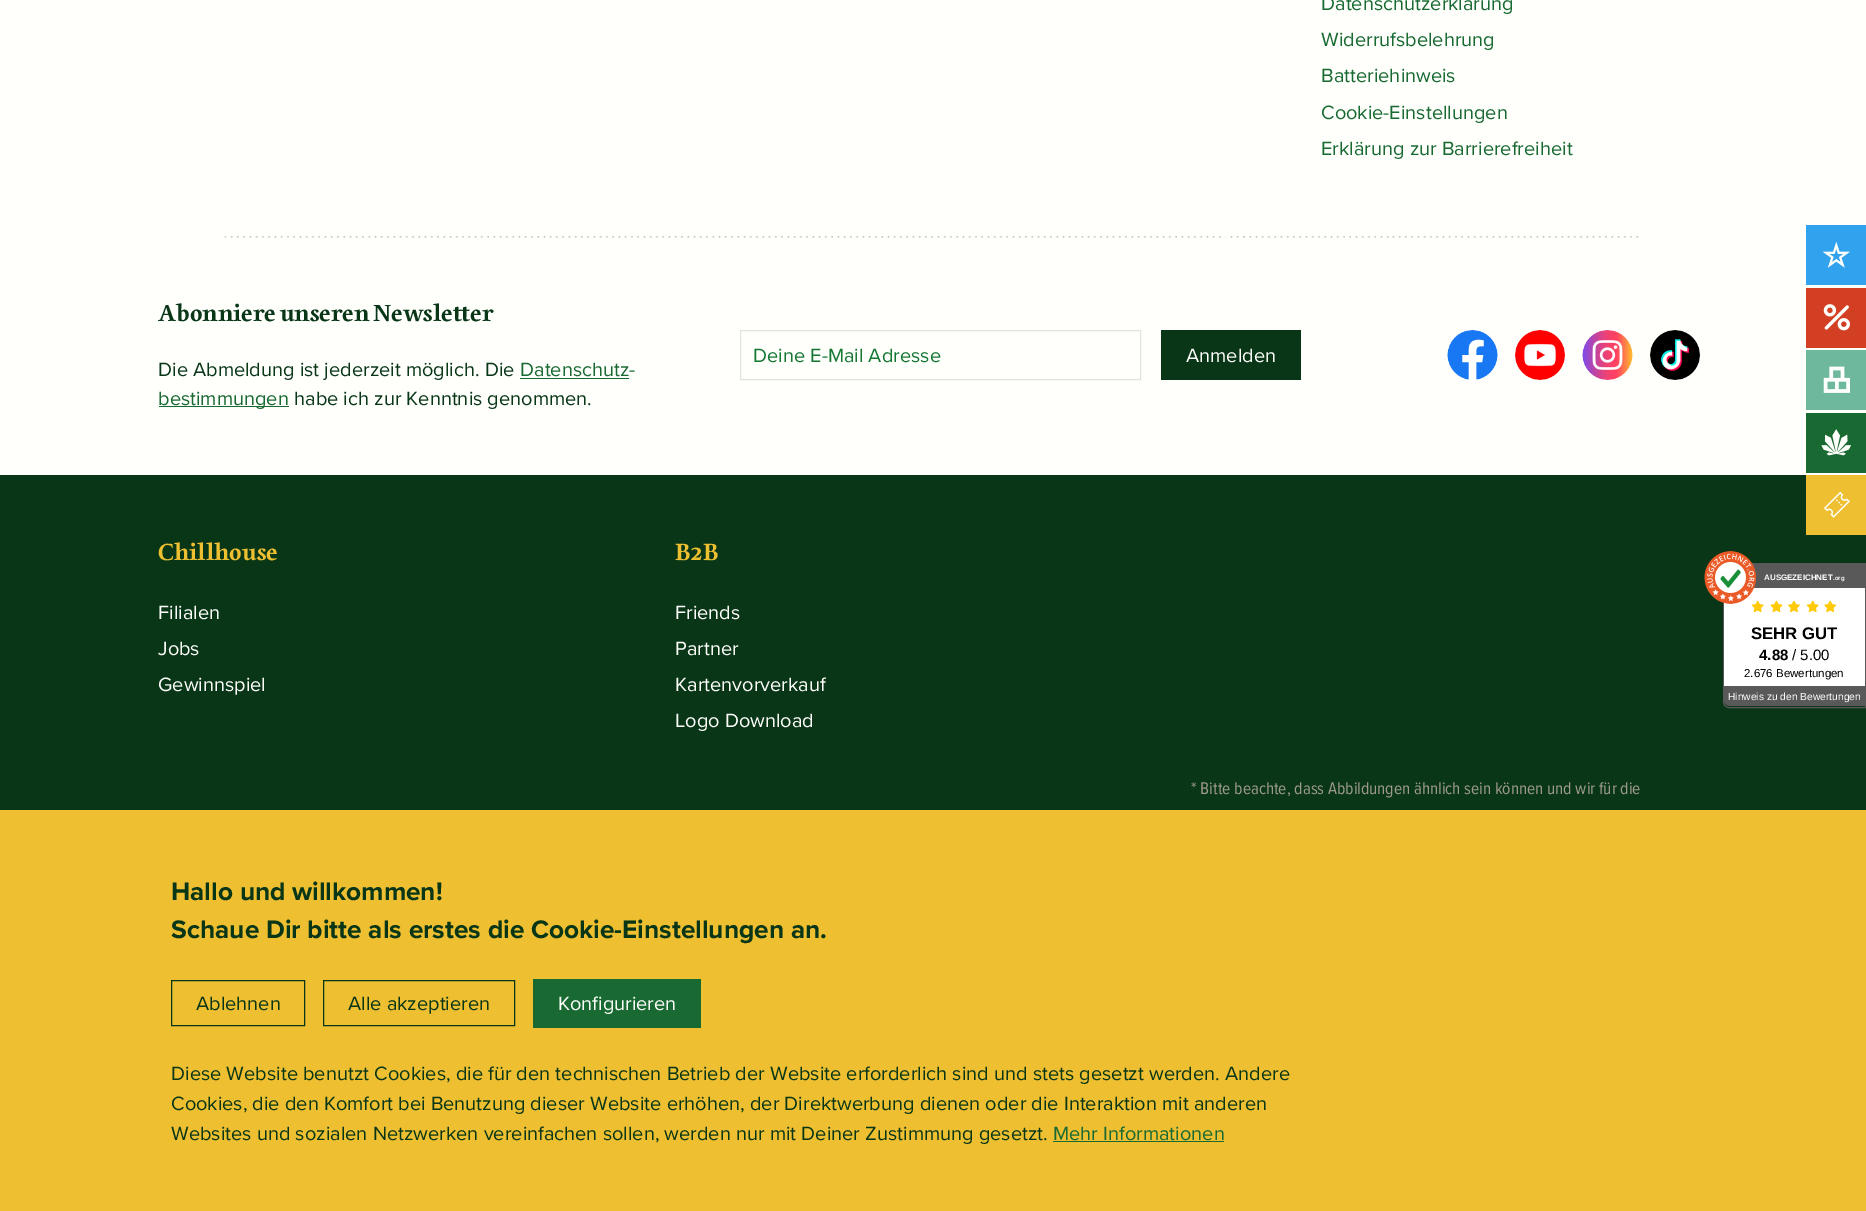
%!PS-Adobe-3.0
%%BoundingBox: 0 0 1866 1211
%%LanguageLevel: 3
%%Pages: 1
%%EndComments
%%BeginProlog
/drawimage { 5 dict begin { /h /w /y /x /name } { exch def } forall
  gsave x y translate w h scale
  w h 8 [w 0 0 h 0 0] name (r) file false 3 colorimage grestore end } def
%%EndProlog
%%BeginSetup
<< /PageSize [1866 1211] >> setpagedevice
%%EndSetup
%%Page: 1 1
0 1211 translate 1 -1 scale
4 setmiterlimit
1 1 0.988 setrgbcolor
0 0 1866 1211 rectfill
(images/1.raw) 224 236 1415 2 drawimage
0.094 0.416 0.196 setrgbcolor
520 378 109 1 rectfill
159 406 130 1 rectfill
0.89 0.89 0.871 setrgbcolor
740.5 330.5 400 49 rectstroke
0.035 0.212 0.09 setrgbcolor
1161 330 140 50 rectfill
(images/2.raw) 1447 330 51 50 drawimage
(images/3.raw) 1515 330 50 50 drawimage
(images/4.raw) 1582 330 51 50 drawimage
(images/5.raw) 1650 330 50 50 drawimage
0 475 1866 335 rectfill
0.192 0.635 0.933 setrgbcolor
1806 225 60 60 rectfill
(images/6.raw) 1822 241 28 27 drawimage
0.827 0.247 0.137 setrgbcolor
1806 288 60 60 rectfill
(images/7.raw) 1823 304 27 27 drawimage
0.431 0.725 0.62 setrgbcolor
1806 350 60 60 rectfill
(images/8.raw) 1823 366 27 27 drawimage
0.094 0.416 0.196 setrgbcolor
1806 413 60 60 rectfill
(images/9.raw) 1821 429 30 27 drawimage
0.933 0.749 0.192 setrgbcolor
1806 475 60 60 rectfill
(images/10.raw) 1823 491 27 27 drawimage
0.349 setgray
newpath 1729 563.5 moveto 1865.5 563.5 lineto 1865.5 707.5 lineto 1729 707.5 lineto 1726 707.5 1723.5 705 1723.5 702 curveto 1723.5 569 lineto 1723.5 566 1726 563.5 1729 563.5 curveto closepath stroke
1752 564 113 24 rectfill
1 setgray
1724 588 141 98 rectfill
(images/12.raw) 1751 600 13 13 drawimage
(images/11.raw) 1704 551 52 53 drawimage
(images/13.raw) 1770 600 13 13 drawimage
(images/14.raw) 1788 600 12 13 drawimage
(images/12.raw) 1806 600 13 13 drawimage
(images/15.raw) 1824 600 12 13 drawimage
0.349 setgray
newpath 1724 686 moveto 1865 686 lineto 1865 706 lineto 1730 706 lineto 1726.5 706 1724 703.5 1724 700 curveto closepath fill
0.933 0.749 0.192 setrgbcolor
0 810 1866 401 rectfill
0.035 0.212 0.09 setrgbcolor
171.5 980.5 133 45 rectstroke
323.5 980.5 191 45 rectstroke
0.094 0.416 0.196 setrgbcolor
533 979 168 49 rectfill
1053 1141 171 1 rectfill
/ProximaNova-Regular [20 0 0 -20 0 0] selectfont
1321 10 moveto (Datenschutzerklärung) show
1321 46 moveto (Widerrufsbelehrung) show
1321 82 moveto (Batteriehinweis) show
1321 119 moveto (Cookie-Einstellungen) show
1321 155 moveto (Erklärung zur Barrierefreiheit) show
/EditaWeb-Bold [25 0 0 -25 0 0] selectfont
0.035 0.212 0.09 setrgbcolor
158 321 moveto (Abonniere unseren Newsletter) show
/ProximaNova-Regular [20 0 0 -20 0 0] selectfont
158 376 moveto (Die Abmeldung ist jederzeit möglich. Die) show
0.094 0.416 0.196 setrgbcolor
520 376 moveto (Datenschutz-) show
158 405 moveto (bestimmungen) show
0.035 0.212 0.09 setrgbcolor
294 405 moveto (habe ich zur Kenntnis genommen.) show
0.078 0.471 0.2 setrgbcolor
753 362 moveto (Deine E-Mail Adresse) show
1 1 0.988 setrgbcolor
1186 362 moveto (Anmelden) show
/EditaWeb-Bold [25 0 0 -25 0 0] selectfont
0.933 0.749 0.192 setrgbcolor
158 560 moveto (Chillhouse) show
/ProximaNova-Regular [20 0 0 -20 0 0] selectfont
1 1 0.988 setrgbcolor
158 619 moveto (Filialen) show
158 655 moveto (Jobs) show
158 691 moveto (Gewinnspiel) show
/EditaWeb-Bold [25 0 0 -25 0 0] selectfont
0.933 0.749 0.192 setrgbcolor
675 560 moveto (B2B) show
/ProximaNova-Regular [20 0 0 -20 0 0] selectfont
1 1 0.988 setrgbcolor
675 619 moveto (Friends) show
675 655 moveto (Partner) show
675 691 moveto (Kartenvorverkauf) show
675 727 moveto (Logo Download) show
/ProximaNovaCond-Regular [17.5 0 0 -17.5 0 0] selectfont
0.62 0.604 0.545 setrgbcolor
1191 794 moveto (* Bitte beachte, dass Abbildungen ähnlich sein können und wir für die) show
/LiberationSans-Bold [8 0 0 -8 0 0] selectfont
1 1 0.988 setrgbcolor
1764 580 moveto (AUSGEZEICHNET) show
/LiberationSans-Bold [6 0 0 -6 0 0] selectfont
1833 580 moveto (.org) show
/LiberationSans-Bold [16.75 0 0 -16.75 0 0] selectfont
0 setgray
1751 639 moveto (SEHR GUT) show
/LiberationSans-Bold [15 0 0 -15 0 0] selectfont
1759 660 moveto (4.88) show
/LiberationSans-Regular [15 0 0 -15 0 0] selectfont
1792 660 moveto (/ 5.00) show
/LiberationSans-Regular [11.5 0 0 -11.5 0 0] selectfont
1744 677 moveto (2.676 Bewertungen) show
/LiberationSans-Regular [10.25 0 0 -10.25 0 0] selectfont
1 1 0.988 setrgbcolor
1728 700 moveto (Hinweis zu den Bewertungen) show
/ProximaNova-Bold [26.25 0 0 -26.25 0 0] selectfont
0.035 0.212 0.09 setrgbcolor
171 900 moveto (Hallo und willkommen!) show
171 938 moveto (Schaue Dir bitte als erstes die Cookie-Einstellungen an.) show
/ProximaNova-Regular [20 0 0 -20 0 0] selectfont
196 1010 moveto (Ablehnen) show
348 1010 moveto (Alle akzeptieren) show
1 1 0.988 setrgbcolor
558 1010 moveto (Konfigurieren) show
0.035 0.212 0.09 setrgbcolor
171 1080 moveto (Diese Website benutzt Cookies, die für den technischen Betrieb der Website erforderlich sind und stets gesetzt werden. Andere) show
171 1110 moveto (Cookies, die den Komfort bei Benutzung dieser Website erhöhen, der Direktwerbung dienen oder die Interaktion mit anderen) show
171 1140 moveto (Websites und sozialen Netzwerken vereinfachen sollen, werden nur mit Deiner Zustimmung gesetzt.) show
0.094 0.416 0.196 setrgbcolor
1053 1140 moveto (Mehr Informationen) show
showpage
%%EOF
